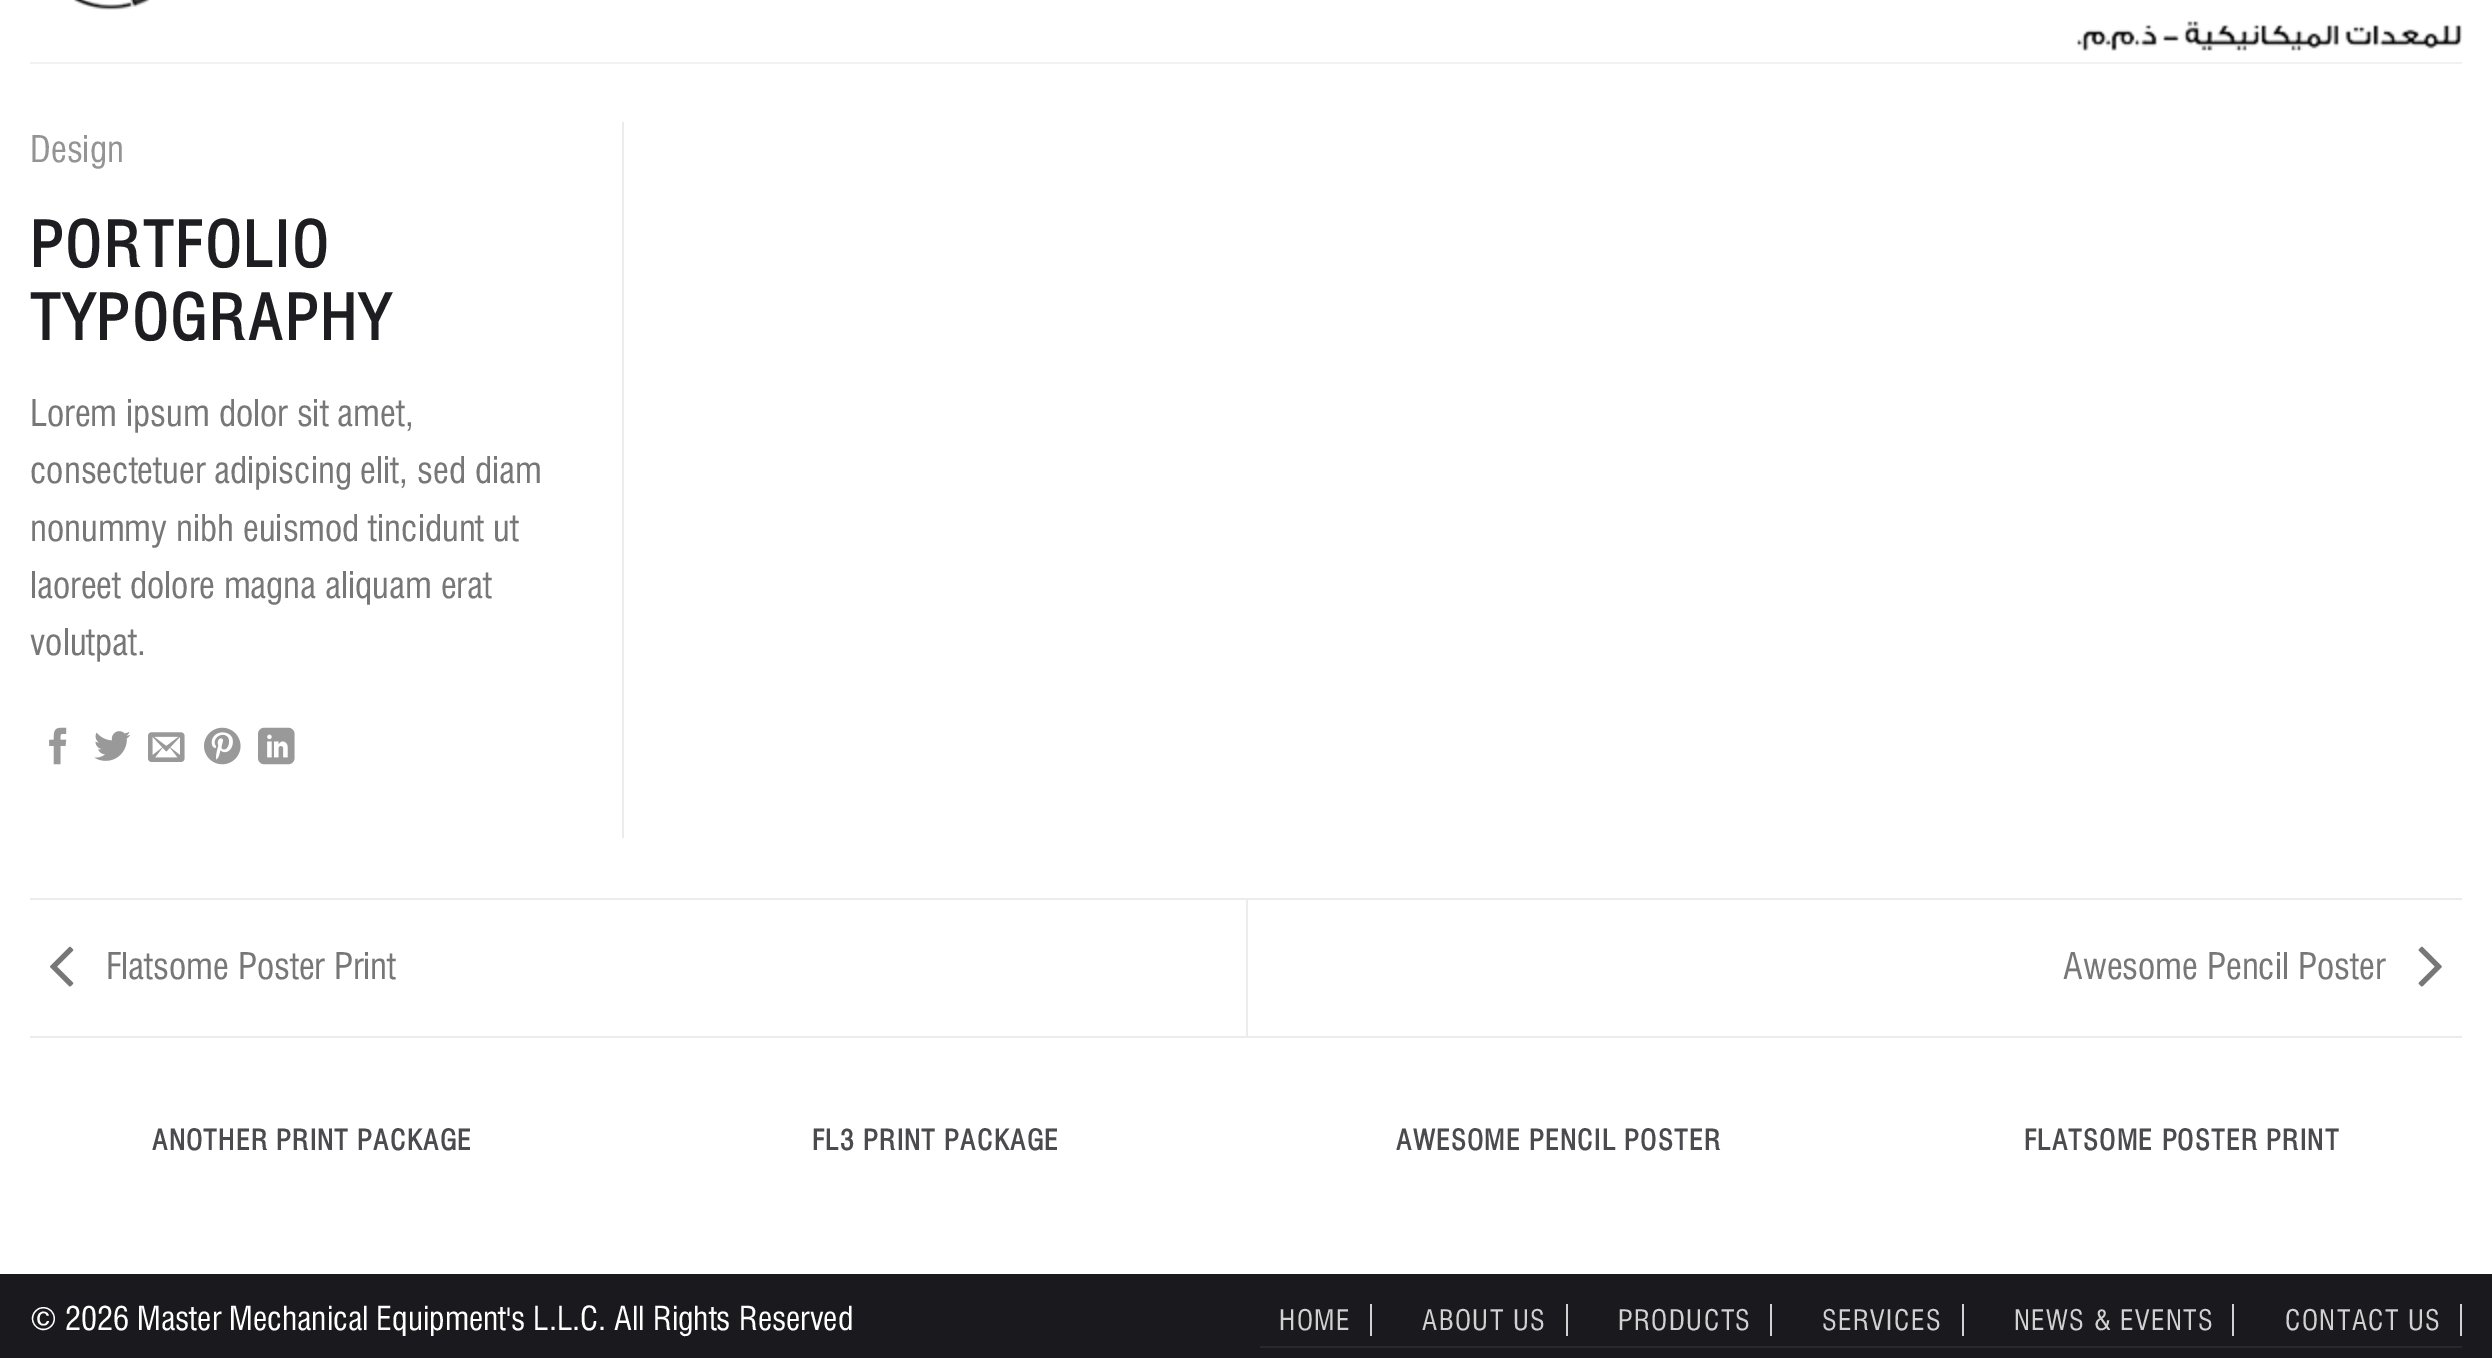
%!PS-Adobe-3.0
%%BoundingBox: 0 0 2492 1358
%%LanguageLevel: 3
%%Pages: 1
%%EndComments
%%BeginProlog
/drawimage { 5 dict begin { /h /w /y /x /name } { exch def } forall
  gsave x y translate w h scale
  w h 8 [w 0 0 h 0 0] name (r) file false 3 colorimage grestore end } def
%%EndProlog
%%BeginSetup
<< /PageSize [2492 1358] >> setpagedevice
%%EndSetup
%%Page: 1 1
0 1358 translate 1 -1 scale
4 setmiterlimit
1 setgray
0 0 2492 1358 rectfill
(images/1.raw) 74 0 76 10 drawimage
(images/2.raw) 2076 20 386 32 drawimage
0.945 setgray
30 62 2432 2 rectfill
0.925 setgray
622 122 2 716 rectfill
(images/3.raw) 49 727 18 38 drawimage
(images/4.raw) 94 731 37 30 drawimage
(images/5.raw) 148 732 37 30 drawimage
(images/6.raw) 204 727 37 38 drawimage
(images/7.raw) 258 727 37 38 drawimage
30 898 2432 2 rectfill
30 1036 2432 2 rectfill
(images/8.raw) 50 946 24 41 drawimage
1246 900 2 136 rectfill
(images/9.raw) 2418 946 24 41 drawimage
0.102 0.098 0.118 setrgbcolor
0 1274 2492 84 rectfill
0.161 0.157 0.173 setrgbcolor
1260 1346 1202 2 rectfill
0.82 0.82 0.824 setrgbcolor
1370 1304 2 32 rectfill
1566 1304 2 32 rectfill
1770 1304 2 32 rectfill
1962 1304 2 32 rectfill
2232 1304 2 32 rectfill
2460 1304 2 32 rectfill
/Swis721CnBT-Regular [35.8 0 0 -35.8 0 0] selectfont
0.58 setgray
30 162 moveto (Design) show
/Swis721CnBT-Bold [61 0 0 -61 0 0] selectfont
0.118 0.114 0.133 setrgbcolor
30 267 moveto 3 0 (PORTFOLIO) ashow
30 340 moveto 3 0 (TYPOGRAPHY) ashow
/Swis721CnBT-Regular [35.8 0 0 -35.8 0 0] selectfont
0.467 setgray
30 426 moveto (Lorem ipsum dolor sit amet,) show
30 483 moveto (consectetuer adipiscing elit, sed diam) show
30 541 moveto (nonummy nibh euismod tincidunt ut) show
30 598 moveto (laoreet dolore magna aliquam erat) show
30 655 moveto (volutpat.) show
106 979 moveto (Flatsome Poster Print) show
2063 979 moveto (Awesome Pencil Poster) show
/Swis721CnBT-Bold [27.5 0 0 -27.5 0 0] selectfont
0.294 0.29 0.306 setrgbcolor
152 1150 moveto 1.4 0 (ANOTHER PRINT PACKAGE) ashow
812 1150 moveto 1.4 0 (FL3 PRINT PACKAGE) ashow
1396 1150 moveto 1.4 0 (AWESOME PENCIL POSTER) ashow
2024 1150 moveto 1.4 0 (FLATSOME POSTER PRINT) ashow
/Swis721CnBT-Regular [32.25 0 0 -32.25 0 0] selectfont
1 setgray
30 1330 moveto (© 2026) show
137 1330 moveto (Master Mechanical Equipment's L.L.C. All Rights Reserved) show
/Swis721CnBT-Regular [27.5 0 0 -27.5 0 0] selectfont
0.82 0.82 0.824 setrgbcolor
1279 1330 moveto 1.4 0 (HOME) ashow
1422 1330 moveto 1.4 0 (ABOUT US) ashow
1618 1330 moveto 1.4 0 (PRODUCTS) ashow
1822 1330 moveto 1.4 0 (SERVICES) ashow
2014 1330 moveto 1.4 0 (NEWS & EVENTS) ashow
2285 1330 moveto 1.4 0 (CONTACT US) ashow
showpage
%%EOF
